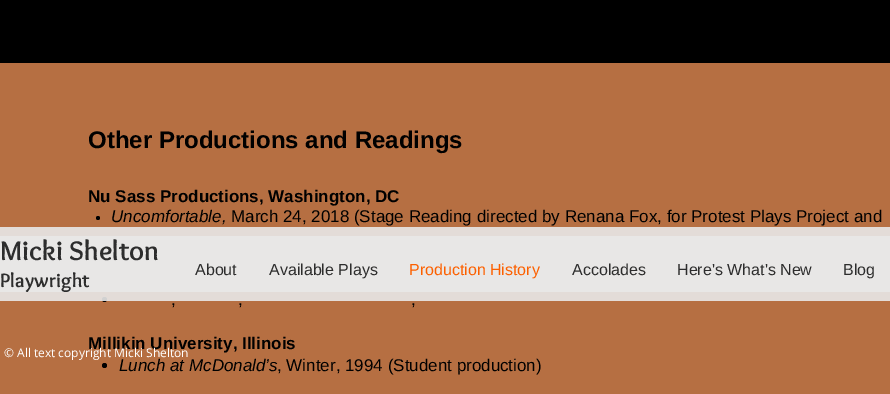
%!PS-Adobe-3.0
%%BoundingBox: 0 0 890 394
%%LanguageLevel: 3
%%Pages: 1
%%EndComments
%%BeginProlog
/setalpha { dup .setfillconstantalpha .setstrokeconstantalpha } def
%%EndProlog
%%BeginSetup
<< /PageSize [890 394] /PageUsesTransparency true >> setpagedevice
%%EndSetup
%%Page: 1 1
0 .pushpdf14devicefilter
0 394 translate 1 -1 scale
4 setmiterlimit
0 setgray
0 0 890 394 rectfill
0.714 0.435 0.259 setrgbcolor
0 63 890 331 rectfill
0 setgray
newpath 98 218 2 0 360 arc closepath fill
newpath 104.5 299.5 2.5 0 360 arc closepath fill
newpath 104.5 365.5 2.5 0 360 arc closepath fill
0.9 setalpha
0.91 setgray
0 227 890 65 rectfill
0 236 890 65 rectfill
/LiberationSans-Bold [24 0 0 -24 0 0] selectfont
1 setalpha
0 setgray
88 148 moveto (Other Productions and Readings) show
/LiberationSans-Bold [17 0 0 -17 0 0] selectfont
88 202 moveto (Nu Sass Productions, Washington, DC) show
/LiberationSans-Italic [17 0 0 -17 0 0] selectfont
111 222 moveto (Uncomfortable,) show
/LiberationSans-Regular [17 0 0 -17 0 0] selectfont
231 222 moveto (March 24, 2018 \(Stage Reading directed by Renana Fox, for Protest Plays Project and) show
171 305 moveto (,) show
238 305 moveto (,) show
411 305 moveto (,) show
/LiberationSans-Bold [17 0 0 -17 0 0] selectfont
88 349 moveto (Millikin University, Illinois) show
/LiberationSans-Italic [17 0 0 -17 0 0] selectfont
119 371 moveto (Lunch at McDonald’s) show
/LiberationSans-Regular [17 0 0 -17 0 0] selectfont
277 371 moveto (, Winter, 1994 \(Student production\)) show
/Overlock-Bold [28 0 0 -28 0 0] selectfont
0.176 setgray
0 260 moveto (Micki Shelton) show
/Overlock-Bold [20 0 0 -20 0 0] selectfont
0 287 moveto (Playwright) show
/LiberationSans-Regular [16 0 0 -16 0 0] selectfont
195 275 moveto (About) show
269 275 moveto (Available Plays) show
0.988 0.376 0 setrgbcolor
409 275 moveto (Production History) show
0.176 setgray
572 275 moveto (Accolades) show
677 275 moveto (Here's What's New) show
843 275 moveto (Blog) show
/OpenSans-Regular [12 0 0 -12 0 0] selectfont
1 setgray
4 357 moveto (© All text copyright Micki Shelton) show
.poppdf14devicefilter showpage
%%EOF
